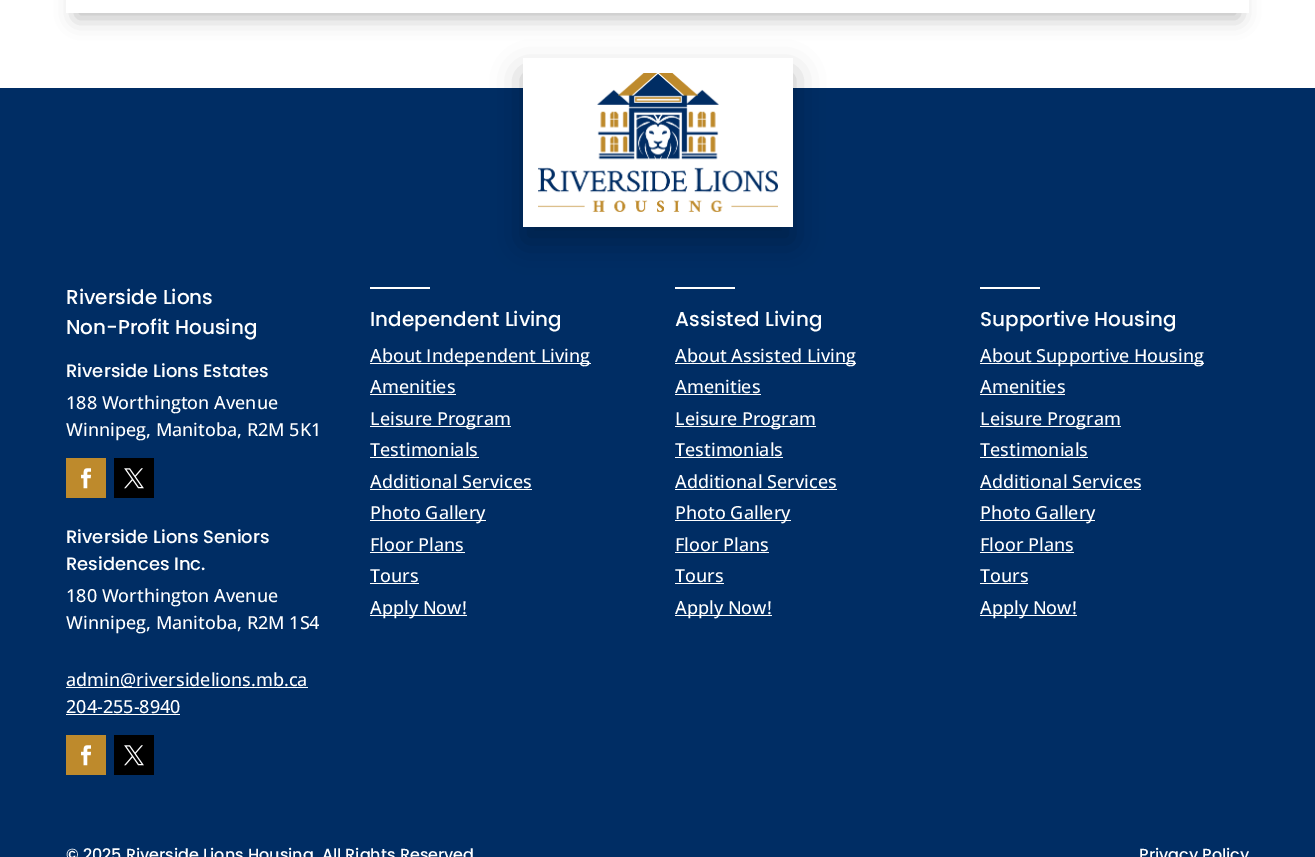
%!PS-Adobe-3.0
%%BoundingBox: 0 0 1315 857
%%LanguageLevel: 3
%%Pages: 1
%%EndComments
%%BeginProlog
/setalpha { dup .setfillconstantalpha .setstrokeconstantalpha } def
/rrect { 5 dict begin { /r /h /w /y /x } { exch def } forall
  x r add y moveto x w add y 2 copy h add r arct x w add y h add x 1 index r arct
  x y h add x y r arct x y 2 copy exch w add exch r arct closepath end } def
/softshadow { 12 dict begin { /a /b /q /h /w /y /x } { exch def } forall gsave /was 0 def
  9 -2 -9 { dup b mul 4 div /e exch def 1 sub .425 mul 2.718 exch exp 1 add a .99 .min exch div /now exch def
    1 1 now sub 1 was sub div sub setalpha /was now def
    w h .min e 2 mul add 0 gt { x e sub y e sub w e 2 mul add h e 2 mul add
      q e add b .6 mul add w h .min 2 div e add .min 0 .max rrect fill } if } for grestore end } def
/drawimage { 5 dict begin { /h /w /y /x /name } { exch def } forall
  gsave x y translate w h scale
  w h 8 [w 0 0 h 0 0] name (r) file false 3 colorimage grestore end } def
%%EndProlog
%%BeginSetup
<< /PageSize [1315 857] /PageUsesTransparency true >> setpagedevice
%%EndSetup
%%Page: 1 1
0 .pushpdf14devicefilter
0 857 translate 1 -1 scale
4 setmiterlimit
1 setgray
0 0 1315 857 rectfill
gsave
newpath 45 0 moveto 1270 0 lineto 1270 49 lineto 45 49 lineto closepath 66 -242 moveto 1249 -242 lineto 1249 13 lineto 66 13 lineto closepath eoclip newpath
0 setgray
76 -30 1163 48 0 10 0.25 softshadow
grestore
0 0.176 0.392 setrgbcolor
0 88 1315 769 rectfill
0 setgray
523 73 270 169 0 15 0.25 softshadow
1 setgray
523 58 270 169 rectfill
(images/1.raw) 538 73 240 139 drawimage
0.745 0.541 0.173 setrgbcolor
66 458 40 40 rectfill
(images/2.raw) 81 468 10 21 drawimage
0 setgray
114 458 40 40 rectfill
(images/3.raw) 124 468 20 21 drawimage
1 setgray
66 687 242 1 rectfill
66 714 114 1 rectfill
0.745 0.541 0.173 setrgbcolor
66 735 40 40 rectfill
(images/2.raw) 81 745 10 21 drawimage
0 setgray
114 735 40 40 rectfill
(images/3.raw) 124 745 20 21 drawimage
1 setgray
370 287 60 2 rectfill
370 363 221 1 rectfill
370 394 86 1 rectfill
370 426 141 1 rectfill
370 457 109 1 rectfill
370 489 162 1 rectfill
370 520 116 1 rectfill
370 552 95 1 rectfill
370 583 49 1 rectfill
370 615 97 1 rectfill
675 287 60 2 rectfill
675 363 181 1 rectfill
675 394 86 1 rectfill
675 426 141 1 rectfill
675 457 108 1 rectfill
675 489 162 1 rectfill
675 520 116 1 rectfill
675 552 94 1 rectfill
675 583 49 1 rectfill
675 615 97 1 rectfill
980 287 60 2 rectfill
980 363 224 1 rectfill
980 394 85 1 rectfill
980 426 141 1 rectfill
980 457 108 1 rectfill
980 489 161 1 rectfill
980 520 115 1 rectfill
980 552 94 1 rectfill
980 583 48 1 rectfill
980 615 97 1 rectfill
/Poppins-Medium [20 0 0 -20 0 0] selectfont
66 304 moveto (Riverside Lions) show
66 334 moveto (Non-Profit Housing) show
/Poppins-Medium [18 0 0 -18 0 0] selectfont
66 377 moveto (Riverside Lions Estates) show
/OpenSans-Medium [18 0 0 -18 0 0] selectfont
66 409 moveto (188 Worthington Avenue) show
66 436 moveto (Winnipeg, Manitoba, R2M 5K1) show
/Poppins-Medium [18 0 0 -18 0 0] selectfont
66 543 moveto (Riverside Lions Seniors) show
66 570 moveto (Residences Inc.) show
/OpenSans-Medium [18 0 0 -18 0 0] selectfont
66 602 moveto (180 Worthington Avenue) show
66 629 moveto (Winnipeg, Manitoba, R2M 1S4) show
66 686 moveto (admin@riversidelions.mb.ca) show
66 713 moveto (204-255-8940) show
/Poppins-Medium [20 0 0 -20 0 0] selectfont
370 326 moveto (Independent Living) show
/OpenSans-Medium [18 0 0 -18 0 0] selectfont
370 362 moveto (About Independent Living) show
370 393 moveto (Amenities) show
370 425 moveto (Leisure Program) show
370 456 moveto (Testimonials) show
370 488 moveto (Additional Services) show
370 519 moveto (Photo Gallery) show
370 551 moveto (Floor Plans) show
370 582 moveto (Tours) show
370 614 moveto (Apply Now!) show
/Poppins-Medium [20 0 0 -20 0 0] selectfont
675 326 moveto (Assisted Living) show
/OpenSans-Medium [18 0 0 -18 0 0] selectfont
675 362 moveto (About Assisted Living) show
675 393 moveto (Amenities) show
675 425 moveto (Leisure Program) show
675 456 moveto (Testimonials) show
675 488 moveto (Additional Services) show
675 519 moveto (Photo Gallery) show
675 551 moveto (Floor Plans) show
675 582 moveto (Tours) show
675 614 moveto (Apply Now!) show
/Poppins-Medium [20 0 0 -20 0 0] selectfont
980 326 moveto (Supportive Housing) show
/OpenSans-Medium [18 0 0 -18 0 0] selectfont
980 362 moveto (About Supportive Housing) show
980 393 moveto (Amenities) show
980 425 moveto (Leisure Program) show
980 456 moveto (Testimonials) show
980 488 moveto (Additional Services) show
980 519 moveto (Photo Gallery) show
980 551 moveto (Floor Plans) show
980 582 moveto (Tours) show
980 614 moveto (Apply Now!) show
/Poppins-Medium [16 0 0 -16 0 0] selectfont
66 860 moveto (© 2025 Riverside Lions Housing. All Rights Reserved) show
1139 860 moveto (Privacy Policy) show
.poppdf14devicefilter showpage
%%EOF
